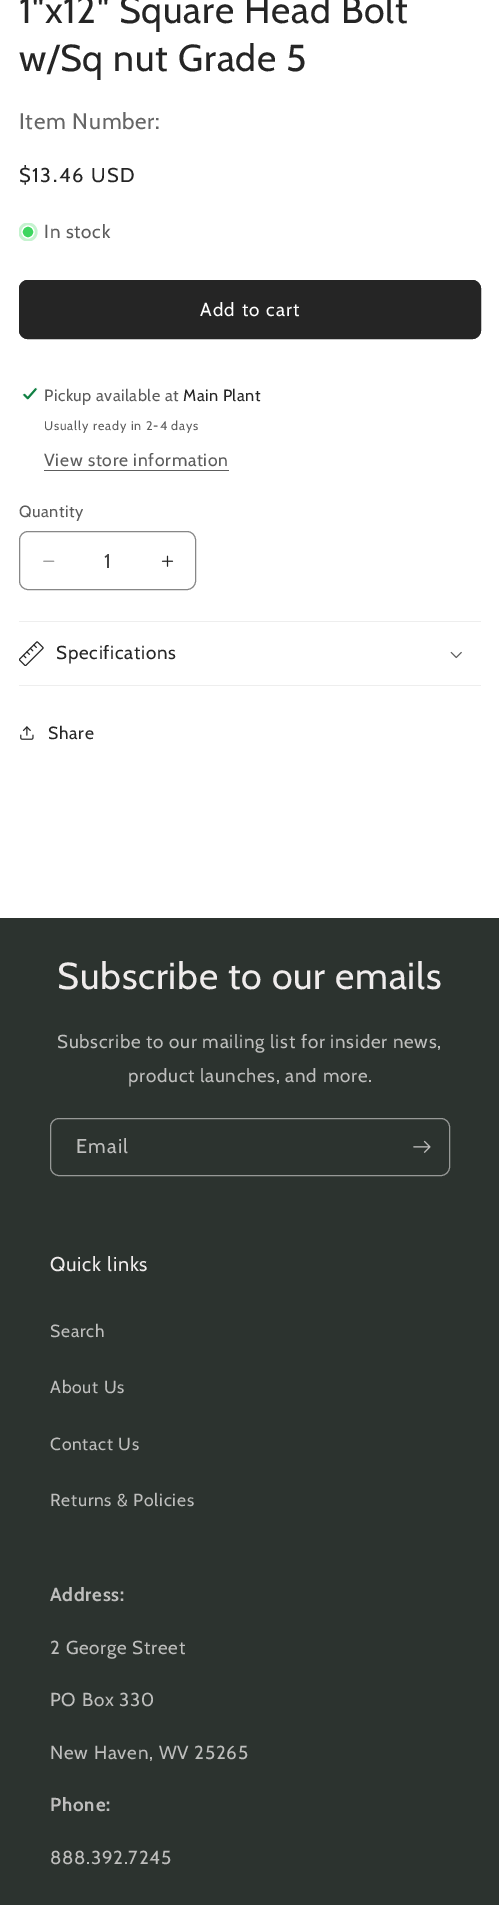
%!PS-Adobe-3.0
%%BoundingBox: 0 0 499 1905
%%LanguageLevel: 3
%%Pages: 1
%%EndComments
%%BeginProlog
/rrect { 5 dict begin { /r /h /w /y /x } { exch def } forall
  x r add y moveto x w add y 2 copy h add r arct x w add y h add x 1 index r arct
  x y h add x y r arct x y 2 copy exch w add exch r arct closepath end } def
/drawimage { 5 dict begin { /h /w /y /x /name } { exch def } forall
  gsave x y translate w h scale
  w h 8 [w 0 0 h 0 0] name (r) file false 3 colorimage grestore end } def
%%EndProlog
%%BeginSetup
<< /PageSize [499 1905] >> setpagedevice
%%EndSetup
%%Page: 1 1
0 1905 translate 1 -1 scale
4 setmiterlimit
1 setgray
0 0 499 1905 rectfill
gsave
19 223 19 18 rectclip
0.773 0.953 0.812 setrgbcolor
newpath 28 232 9.5 0 360 arc closepath fill
grestore
0.243 0.839 0.376 setrgbcolor
newpath 28 232 6 0 360 arc closepath gsave fill grestore
1 setgray
1.2 setlinewidth
stroke
0.145 setgray
19 280 462 59 9 rrect fill
1 setlinewidth
19.5 280.5 461 58 8.5 rrect stroke
(images/1.raw) 22 387 16 13 drawimage
0.361 setgray
44 470 185 1 rectfill
(images/2.raw) 43 560 12 2 drawimage
(images/3.raw) 161 555 13 12 drawimage
0.529 setgray
19.5 531.5 176 58 8.5 rrect stroke
0.933 setgray
19 621 462 1 rectfill
19 685 462 1 rectfill
(images/4.raw) 19 641 25 25 drawimage
(images/5.raw) 450 651 12 8 drawimage
(images/6.raw) 20 726 14 14 drawimage
0.173 0.2 0.184 setrgbcolor
0 918 499 987 rectfill
0.592 0.6 0.592 setrgbcolor
50.5 1118.5 399 57 8.5 rrect stroke
(images/7.raw) 413 1140 18 13 drawimage
/Cabin-Regular [37.5 0 0 -37.5 0 0] selectfont
0.145 setgray
19 23 moveto 0.75 0 (1"x12" Square Head Bolt) ashow
19 71 moveto 0.75 0 (w/Sq nut Grade 5) ashow
/Cabin-Regular [22.5 0 0 -22.5 0 0] selectfont
0.4 setgray
19 129 moveto 0.75 0 (Item Number:) ashow
/Cabin-Regular [20 0 0 -20 0 0] selectfont
0.145 setgray
19 182 moveto 1.6 0 ($13.46 USD) ashow
/Cabin-Regular [18.75 0 0 -18.75 0 0] selectfont
0.361 setgray
44 238 moveto 0.75 0 (In stock) ashow
1 setgray
200 316 moveto 1.25 0 (Add to cart) ashow
/Cabin-Regular [16.25 0 0 -16.25 0 0] selectfont
0.361 setgray
44 401 moveto 0.5 0 (Pickup available at) ashow
0.145 setgray
183 401 moveto 0.5 0 (Main Plant) ashow
/Cabin-Regular [12.5 0 0 -12.5 0 0] selectfont
0.361 setgray
44 430 moveto 0.9 0 (Usually ready in 2-4 days) ashow
/Cabin-Regular [17.5 0 0 -17.5 0 0] selectfont
44 466 moveto 0.75 0 (View store information) ashow
/Cabin-Regular [16.25 0 0 -16.25 0 0] selectfont
19 517 moveto 0.5 0 (Quantity) ashow
/Cabin-Regular [20 0 0 -20 0 0] selectfont
0.275 setgray
104 568 moveto (1) show
/Cabin-Regular [18.75 0 0 -18.75 0 0] selectfont
0.145 setgray
56 659 moveto 0.75 0 (Specifications) ashow
/Cabin-Regular [17.5 0 0 -17.5 0 0] selectfont
48 739 moveto 0.75 0 (Share) ashow
/Cabin-Regular [37.5 0 0 -37.5 0 0] selectfont
0.937 0.925 0.925 setrgbcolor
57 989 moveto 0.75 0 (Subscribe to our emails) ashow
/Cabin-Regular [18.75 0 0 -18.75 0 0] selectfont
0.745 0.745 0.741 setrgbcolor
57 1048 moveto 0.75 0 (Subscribe to our mailing list for insider news,) ashow
128 1082 moveto 0.75 0 (product launches, and more.) ashow
/Cabin-Regular [20 0 0 -20 0 0] selectfont
76 1153 moveto 1.25 0 (Email) ashow
0.937 0.925 0.925 setrgbcolor
50 1271 moveto 0.75 0 (Quick links) ashow
/Cabin-Regular [17.5 0 0 -17.5 0 0] selectfont
0.745 0.745 0.741 setrgbcolor
50 1337 moveto 0.75 0 (Search) ashow
50 1393 moveto 0.75 0 (About Us) ashow
50 1450 moveto 0.75 0 (Contact Us) ashow
50 1506 moveto 0.75 0 (Returns & Policies) ashow
/Cabin-Bold [18.75 0 0 -18.75 0 0] selectfont
50 1601 moveto 0.75 0 (Address:) ashow
/Cabin-Regular [18.75 0 0 -18.75 0 0] selectfont
50 1654 moveto 0.75 0 (2 George Street) ashow
50 1706 moveto 0.75 0 (PO Box 330) ashow
50 1759 moveto 0.75 0 (New Haven, WV 25265) ashow
/Cabin-Bold [18.75 0 0 -18.75 0 0] selectfont
50 1811 moveto 0.75 0 (Phone:) ashow
/Cabin-Regular [18.75 0 0 -18.75 0 0] selectfont
50 1864 moveto 0.75 0 (888.392.7245) ashow
showpage
%%EOF
